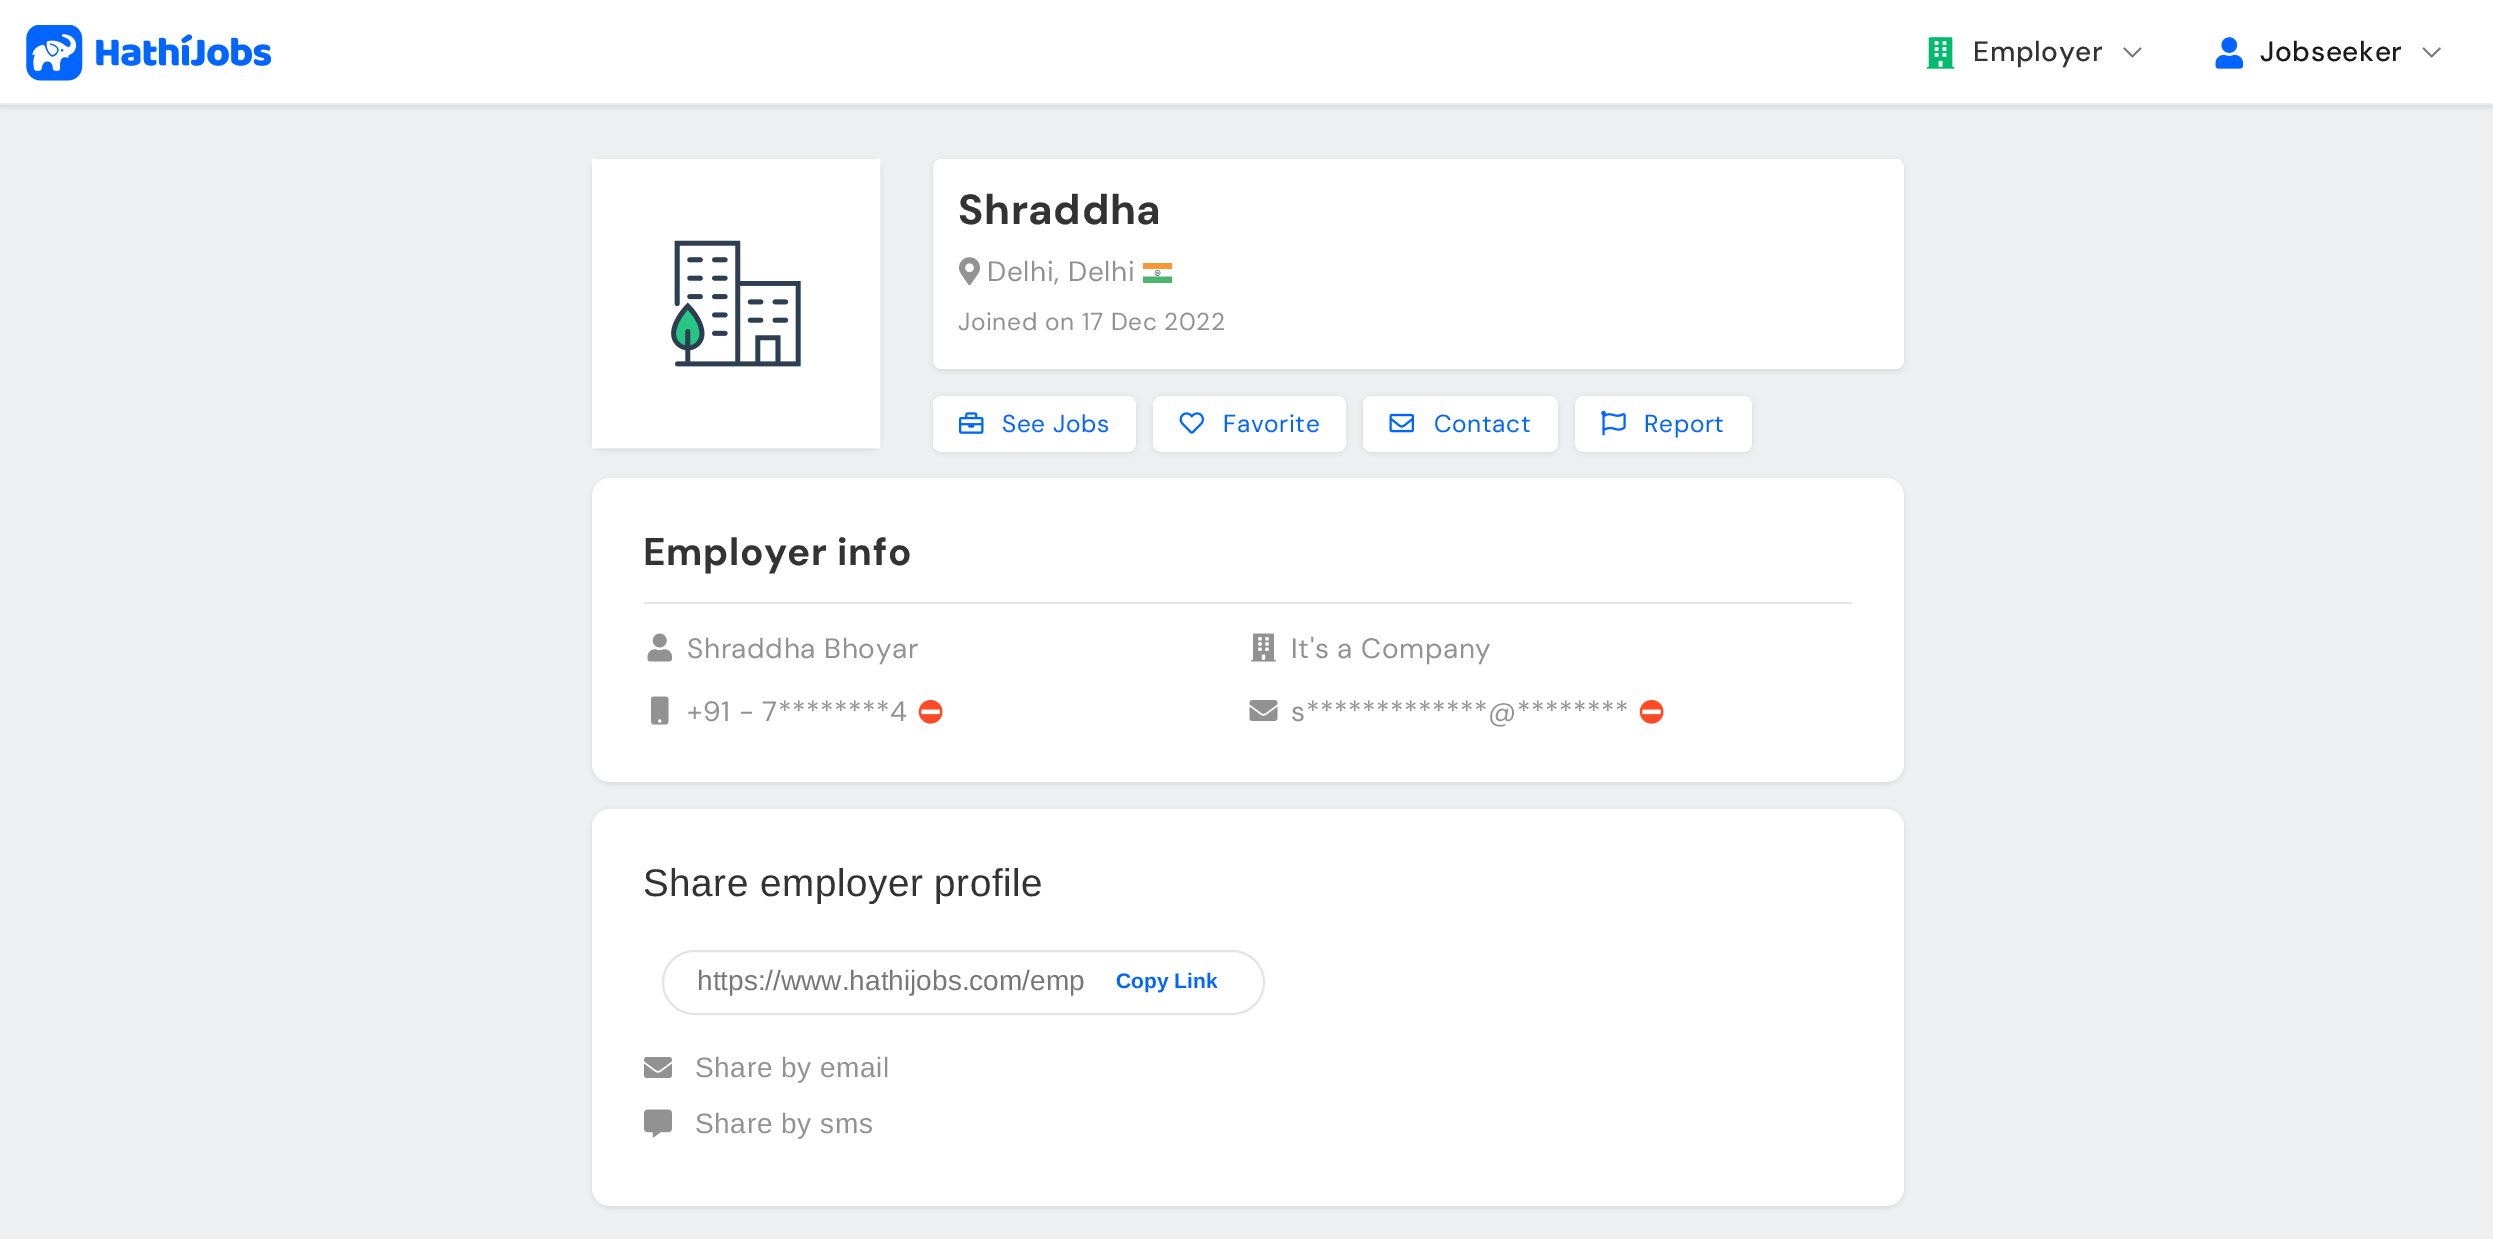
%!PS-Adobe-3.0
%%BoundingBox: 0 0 2493 1239
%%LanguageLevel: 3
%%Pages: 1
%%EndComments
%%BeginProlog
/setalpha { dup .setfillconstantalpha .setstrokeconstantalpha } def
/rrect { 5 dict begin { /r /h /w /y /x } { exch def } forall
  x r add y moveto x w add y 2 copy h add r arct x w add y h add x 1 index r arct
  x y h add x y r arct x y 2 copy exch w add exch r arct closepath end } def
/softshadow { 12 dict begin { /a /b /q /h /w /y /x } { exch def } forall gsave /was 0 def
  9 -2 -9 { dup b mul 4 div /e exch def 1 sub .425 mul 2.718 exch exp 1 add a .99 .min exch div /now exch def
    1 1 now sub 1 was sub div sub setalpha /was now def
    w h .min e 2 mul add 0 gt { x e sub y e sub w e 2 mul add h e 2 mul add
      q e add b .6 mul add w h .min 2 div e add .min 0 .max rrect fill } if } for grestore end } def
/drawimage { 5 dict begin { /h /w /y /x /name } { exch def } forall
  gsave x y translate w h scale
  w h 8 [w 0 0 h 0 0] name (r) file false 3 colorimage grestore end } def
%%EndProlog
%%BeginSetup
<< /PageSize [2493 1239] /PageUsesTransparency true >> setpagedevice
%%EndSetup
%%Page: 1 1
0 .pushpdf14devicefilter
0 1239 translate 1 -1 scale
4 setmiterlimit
0.929 0.937 0.945 setrgbcolor
0 0 2493 1239 rectfill
0 setgray
0 2 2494 105 0 2.5 0.09 softshadow
1 setgray
0 0 2493 103 rectfill
0.922 setgray
0 103 2493 2 rectfill
(images/1.raw) 26 25 245 56 drawimage
(images/2.raw) 1926 37 29 32 drawimage
(images/3.raw) 2123 47 19 11 drawimage
(images/4.raw) 2215 37 29 32 drawimage
(images/5.raw) 2422 47 19 11 drawimage
0 setgray
592 161 288 289 9 2.5 0.08 softshadow
1 setgray
newpath 601 168 moveto 871 168 lineto 871 439 lineto 601 439 lineto closepath gsave fill grestore
18 setlinewidth
stroke
(images/6.raw) 671 240 130 127 drawimage
0 setgray
933 161 971 210 9 2.5 0.08 softshadow
1 setgray
933 159 971 210 9 rrect fill
(images/7.raw) 959 257 21 29 drawimage
(images/8.raw) 1143 263 30 21 drawimage
0 setgray
933 397 203 56 9 2.5 0.08 softshadow
1 setgray
933 396 203 56 9 rrect fill
(images/9.raw) 959 412 25 22 drawimage
0 setgray
1153 397 193 56 9 2.5 0.08 softshadow
1 setgray
1153 396 193 56 9 rrect fill
(images/10.raw) 1179 412 26 22 drawimage
0 setgray
1363 397 195 56 9 2.5 0.08 softshadow
1 setgray
1363 396 195 56 9 rrect fill
(images/11.raw) 1389 413 25 20 drawimage
0 setgray
1575 397 177 56 9 2.5 0.08 softshadow
1 setgray
1575 396 177 56 9 rrect fill
(images/12.raw) 1601 410 25 26 drawimage
0 setgray
592 480 1312 304 18 2.5 0.08 softshadow
1 setgray
592 478 1312 304 18 rrect fill
0.894 setgray
644 602 1208 2 rectfill
(images/13.raw) 647 633 25 29 drawimage
(images/14.raw) 1251 633 25 29 drawimage
(images/15.raw) 651 696 18 29 drawimage
(images/16.raw) 918 699 25 25 drawimage
(images/17.raw) 1249 700 29 21 drawimage
(images/16.raw) 1639 699 25 25 drawimage
0 setgray
592 810 1312 398 18 2.5 0.08 softshadow
1 setgray
592 809 1312 397 18 rrect fill
0.894 setgray
2 setlinewidth
663 951 601 63 31.5 rrect stroke
(images/18.raw) 644 1057 28 21 drawimage
(images/19.raw) 644 1109 28 29 drawimage
/DMSans-Medium [28 0 0 -28 0 0] selectfont
0.2 setgray
1973 61 moveto 0.6 0 (Employer) ashow
0.102 setgray
2260 61 moveto 0.6 0 (Jobseeker) ashow
/DMSans-Bold [42 0 0 -42 0 0] selectfont
0.2 setgray
958 224 moveto 0.6 0 (Shraddha) ashow
/DMSans-Regular [28 0 0 -28 0 0] selectfont
0.573 setgray
987 281 moveto 0.6 0 (Delhi, Delhi) ashow
/DMSans-Regular [24.5 0 0 -24.5 0 0] selectfont
958 330 moveto 0.6 0 (Joined on 17 Dec 2022) ashow
0.008 0.396 1 setrgbcolor
1002 432 moveto 0.6 0 (See Jobs) ashow
1223 432 moveto 0.6 0 (Favorite) ashow
1434 432 moveto 0.6 0 (Contact) ashow
1644 432 moveto 0.6 0 (Report) ashow
/DMSans-Bold [38.5 0 0 -38.5 0 0] selectfont
0.2 setgray
643 565 moveto 0.6 0 (Employer info) ashow
/DMSans-Regular [28 0 0 -28 0 0] selectfont
0.573 setgray
687 658 moveto 0.6 0 (Shraddha Bhoyar) ashow
1291 658 moveto 0.6 0 (It's a Company) ashow
687 721 moveto 0.6 0 (+91 - 7********4) ashow
1291 721 moveto 0.6 0 (s*************@********) ashow
/LiberationSans-Regular [38.5 0 0 -38.5 0 0] selectfont
0.2 setgray
643 896 moveto 0.6 0 (Share employer profile) ashow
/LiberationSans-Regular [28 0 0 -28 0 0] selectfont
0.467 setgray
697 990 moveto (https://www.hathijobs.com/emp) show
/LiberationSans-Bold [21 0 0 -21 0 0] selectfont
0.008 0.396 1 setrgbcolor
1116 988 moveto (Copy Link) show
/LiberationSans-Regular [28 0 0 -28 0 0] selectfont
0.573 setgray
695 1077 moveto 0.6 0 (Share by email) ashow
695 1133 moveto 0.6 0 (Share by sms) ashow
.poppdf14devicefilter showpage
%%EOF
